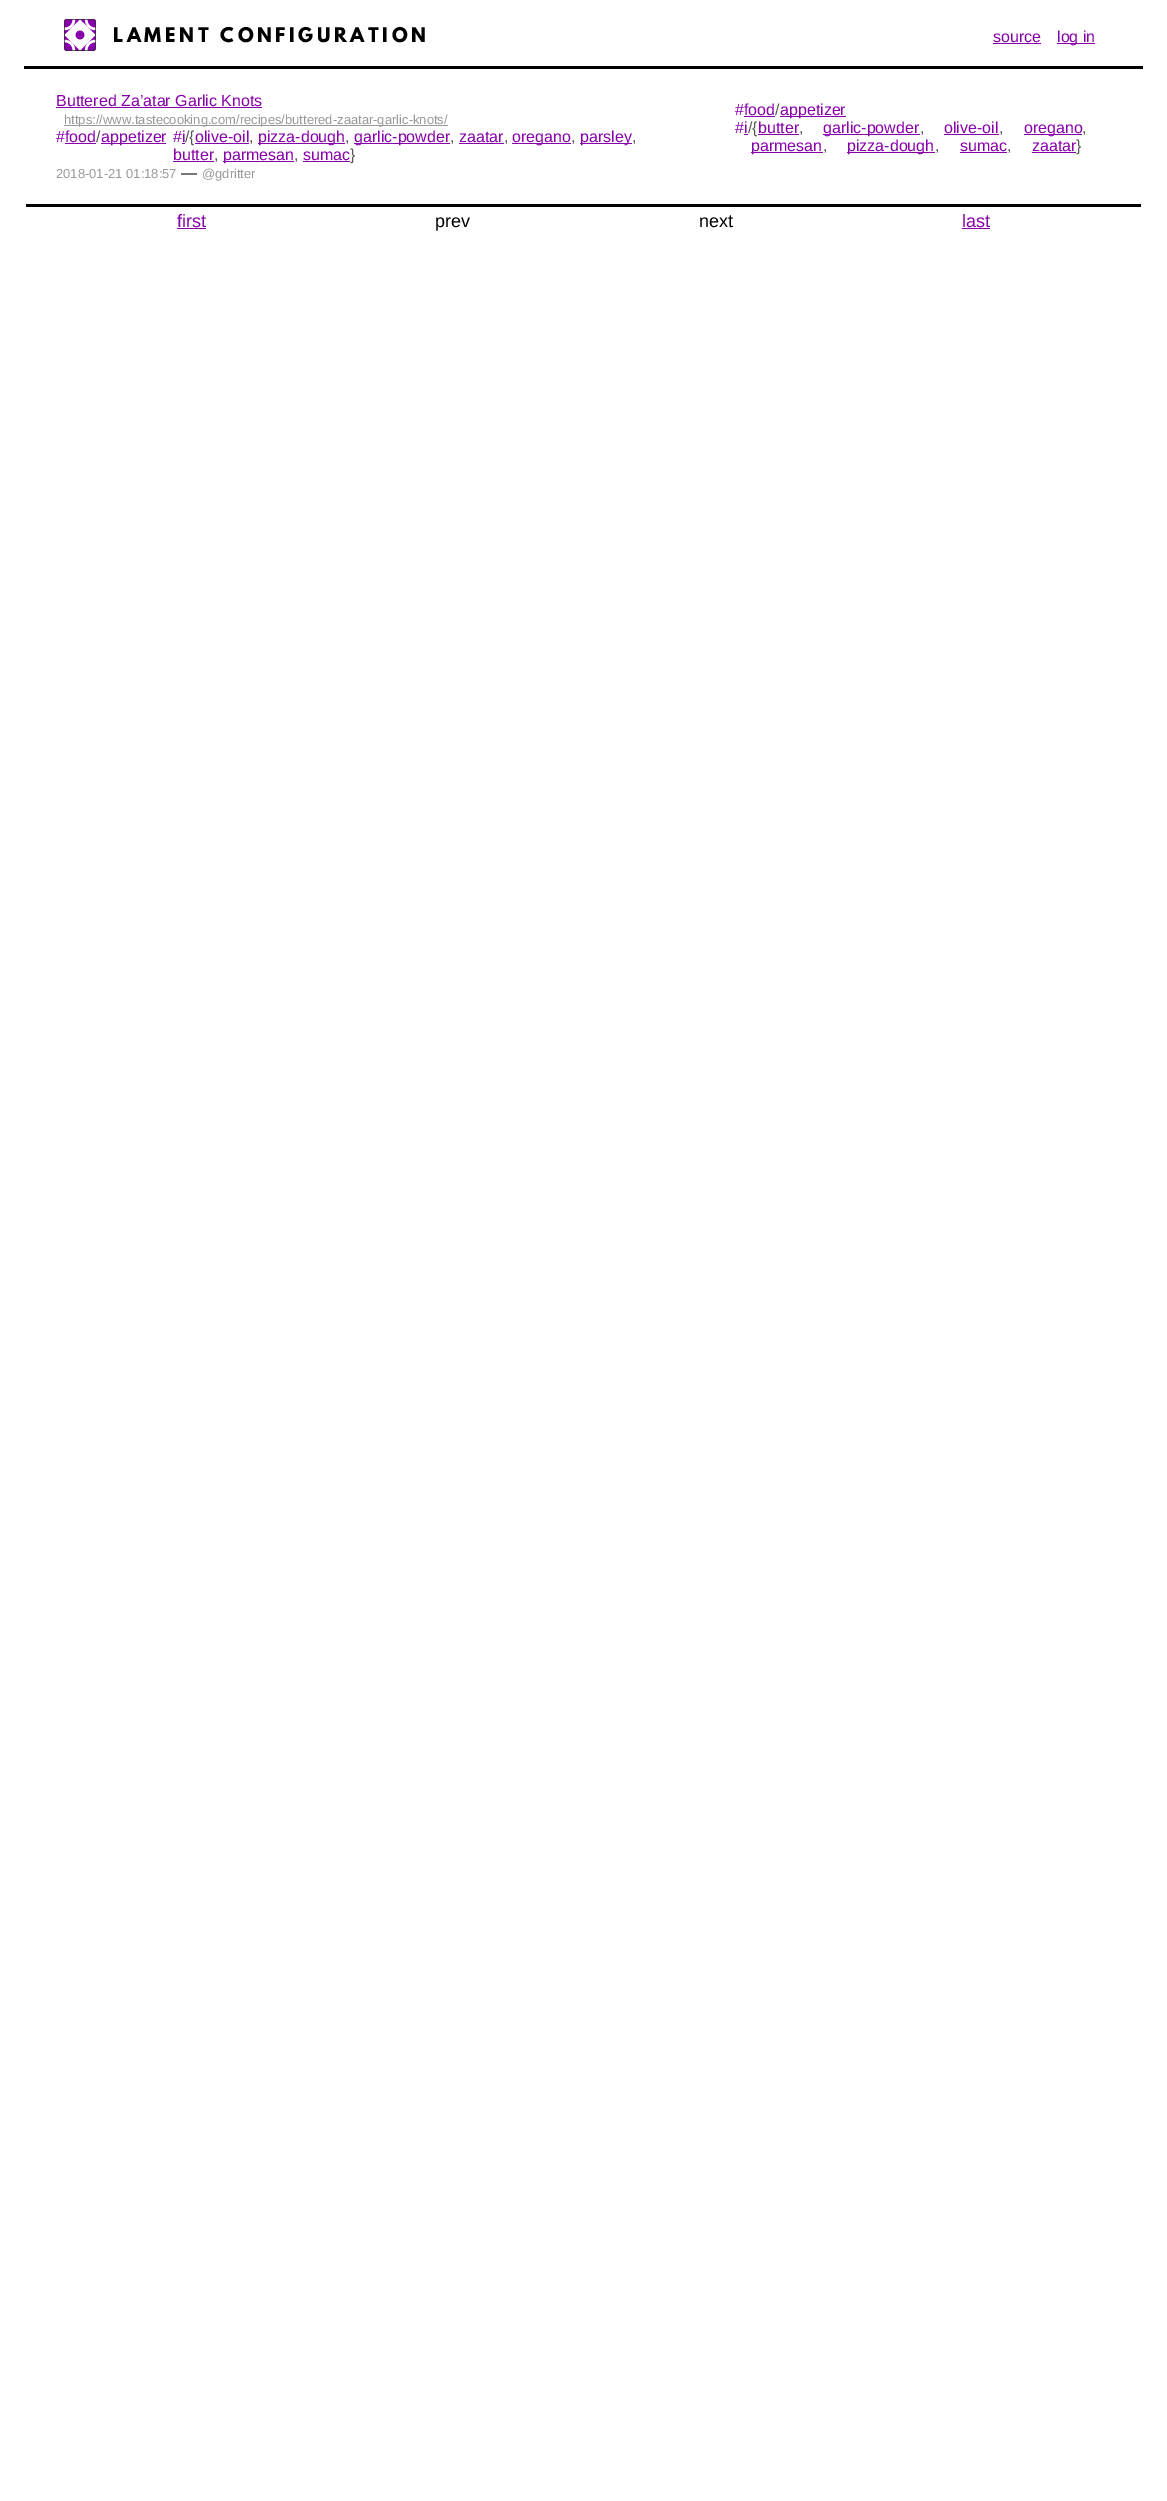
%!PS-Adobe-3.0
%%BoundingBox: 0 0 1167 2501
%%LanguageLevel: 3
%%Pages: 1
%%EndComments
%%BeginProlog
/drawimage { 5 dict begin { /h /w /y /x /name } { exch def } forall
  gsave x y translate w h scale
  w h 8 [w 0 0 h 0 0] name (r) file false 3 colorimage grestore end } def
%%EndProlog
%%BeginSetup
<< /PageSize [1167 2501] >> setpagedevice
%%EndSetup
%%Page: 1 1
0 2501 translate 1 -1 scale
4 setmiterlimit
1 setgray
0 0 1167 2501 rectfill
0 setgray
24 66 1119 3 rectfill
(images/1.raw) 64 19 32 32 drawimage
0.533 0 0.667 setrgbcolor
993 43 48 1 rectfill
1057 43 38 1 rectfill
56 107 206 1 rectfill
0.6 setgray
64 125 384 1 rectfill
0.533 0 0.667 setrgbcolor
101 143 65 1 rectfill
65 143 31 1 rectfill
195 143 54 1 rectfill
258 143 87 1 rectfill
354 143 96 1 rectfill
459 143 45 1 rectfill
512 143 59 1 rectfill
580 143 52 1 rectfill
182 143 3 1 rectfill
173 161 41 1 rectfill
223 161 71 1 rectfill
303 161 47 1 rectfill
780 116 66 1 rectfill
744 116 31 1 rectfill
758 134 41 1 rectfill
823 134 97 1 rectfill
944 134 55 1 rectfill
1024 134 58 1 rectfill
744 134 4 1 rectfill
751 152 72 1 rectfill
847 152 88 1 rectfill
960 152 47 1 rectfill
1032 152 44 1 rectfill
0 setgray
26 204 1115 3 rectfill
0.533 0 0.667 setrgbcolor
177 228 29 1 rectfill
962 228 28 1 rectfill
/LeagueSpartan-Bold [18 0 0 -18 0 0] selectfont
0 setgray
113 42 moveto 3.6 0 (LAMENT CONFIGURATION) ashow
/LiberationSans-Regular [16 0 0 -16 0 0] selectfont
0.533 0 0.667 setrgbcolor
993 42 moveto (source) show
1057 42 moveto (log in) show
56 106 moveto (Buttered Za’atar Garlic Knots) show
/LiberationSans-Regular [13 0 0 -13 0 0] selectfont
0.6 setgray
64 124 moveto (https://www.tastecooking.com/recipes/buttered-zaatar-garlic-knots/) show
/LiberationSans-Regular [16 0 0 -16 0 0] selectfont
0.533 0 0.667 setrgbcolor
56 142 moveto (#food) show
0.333 setgray
96 142 moveto (/) show
0.533 0 0.667 setrgbcolor
101 142 moveto (appetizer) show
173 142 moveto (#i) show
0.333 setgray
185 142 moveto (/{) show
0.533 0 0.667 setrgbcolor
195 142 moveto (olive-oil) show
0.333 setgray
249 142 moveto (,) show
0.533 0 0.667 setrgbcolor
258 142 moveto (pizza-dough) show
0.333 setgray
345 142 moveto (,) show
0.533 0 0.667 setrgbcolor
354 142 moveto (garlic-powder) show
0.333 setgray
450 142 moveto (,) show
0.533 0 0.667 setrgbcolor
459 142 moveto (zaatar) show
0.333 setgray
504 142 moveto (,) show
0.533 0 0.667 setrgbcolor
512 142 moveto (oregano) show
0.333 setgray
571 142 moveto (,) show
0.533 0 0.667 setrgbcolor
580 142 moveto (parsley) show
0.333 setgray
632 142 moveto (,) show
0.533 0 0.667 setrgbcolor
173 160 moveto (butter) show
0.333 setgray
214 160 moveto (,) show
0.533 0 0.667 setrgbcolor
223 160 moveto (parmesan) show
0.333 setgray
294 160 moveto (,) show
0.533 0 0.667 setrgbcolor
303 160 moveto (sumac) show
0.333 setgray
350 160 moveto (}) show
/LiberationSans-Regular [13 0 0 -13 0 0] selectfont
0.6 setgray
56 178 moveto (2018-01-21 01:18:57) show
/LiberationSans-Regular [16 0 0 -16 0 0] selectfont
0 setgray
181 178 moveto (—) show
/LiberationSans-Regular [13 0 0 -13 0 0] selectfont
0.6 setgray
202 178 moveto (@gdritter) show
/LiberationSans-Regular [16 0 0 -16 0 0] selectfont
0.533 0 0.667 setrgbcolor
735 115 moveto (#food) show
0.333 setgray
775 115 moveto (/) show
0.533 0 0.667 setrgbcolor
780 115 moveto (appetizer) show
735 133 moveto (#i) show
0.333 setgray
748 133 moveto (/{) show
0.533 0 0.667 setrgbcolor
758 133 moveto (butter) show
0.333 setgray
799 133 moveto (,) show
0.533 0 0.667 setrgbcolor
823 133 moveto (garlic-powder) show
0.333 setgray
920 133 moveto (,) show
0.533 0 0.667 setrgbcolor
944 133 moveto (olive-oil) show
0.333 setgray
999 133 moveto (,) show
0.533 0 0.667 setrgbcolor
1024 133 moveto (oregano) show
0.333 setgray
1082 133 moveto (,) show
0.533 0 0.667 setrgbcolor
751 151 moveto (parmesan) show
0.333 setgray
823 151 moveto (,) show
0.533 0 0.667 setrgbcolor
847 151 moveto (pizza-dough) show
0.333 setgray
935 151 moveto (,) show
0.533 0 0.667 setrgbcolor
960 151 moveto (sumac) show
0.333 setgray
1007 151 moveto (,) show
0.533 0 0.667 setrgbcolor
1032 151 moveto (zaatar) show
0.333 setgray
1076 151 moveto (}) show
/LiberationSans-Regular [18 0 0 -18 0 0] selectfont
0.533 0 0.667 setrgbcolor
177 227 moveto (first) show
0 setgray
435 227 moveto (prev) show
699 227 moveto (next) show
0.533 0 0.667 setrgbcolor
962 227 moveto (last) show
showpage
%%EOF
